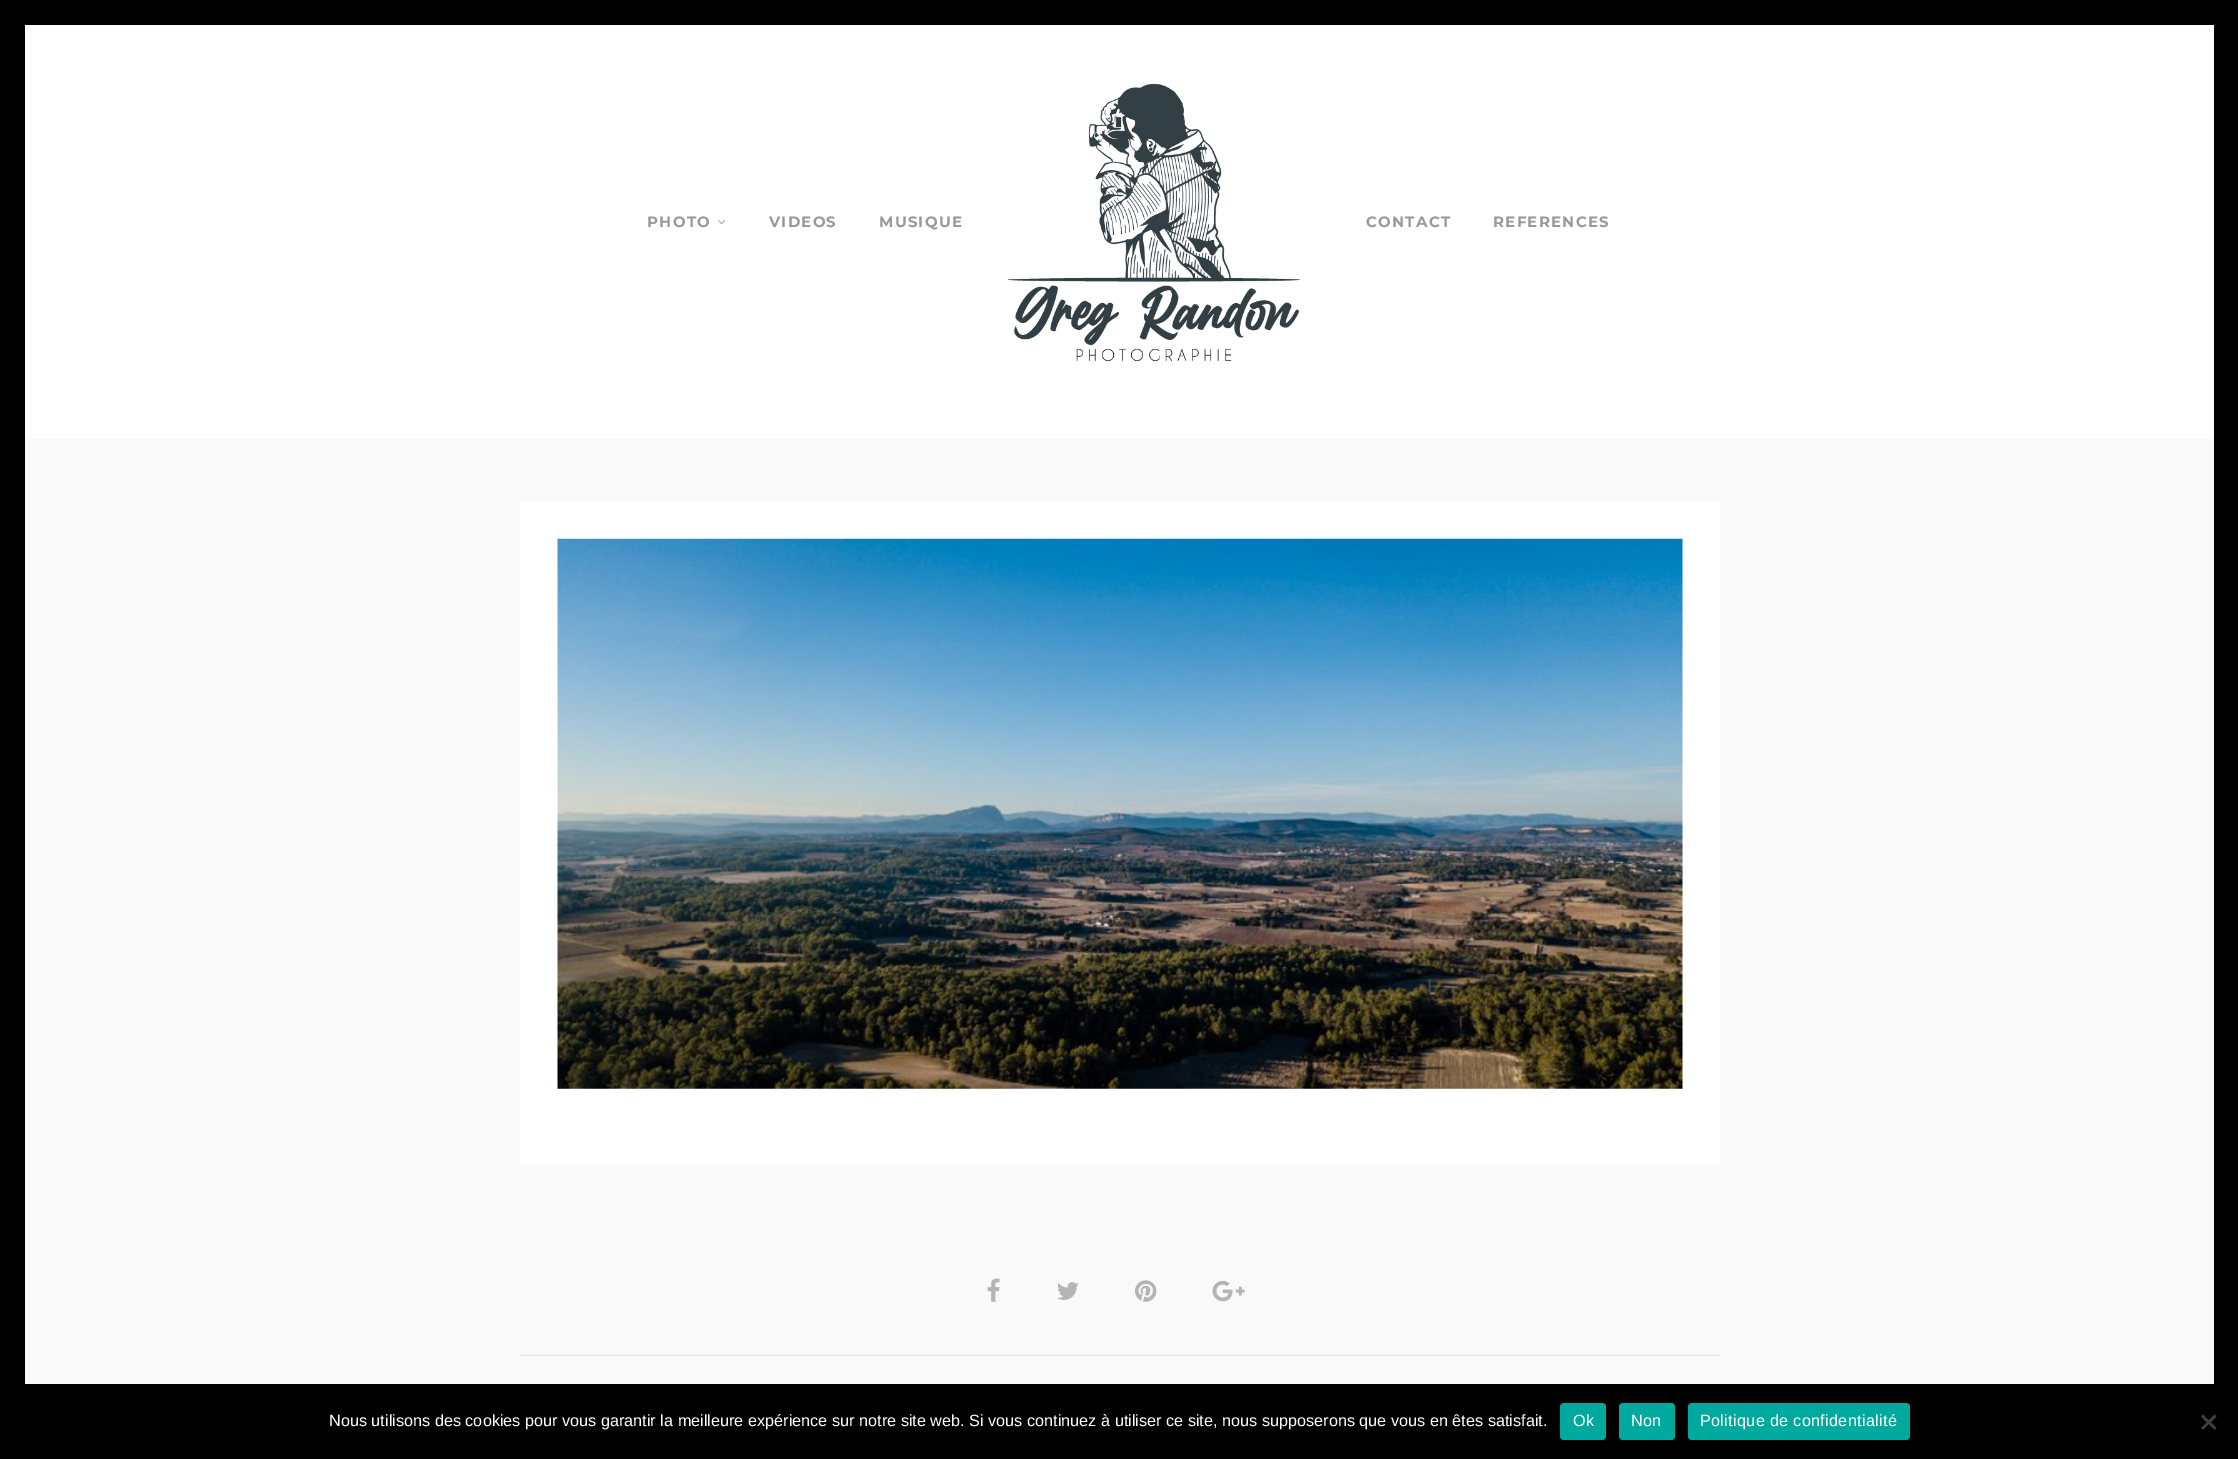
%!PS-Adobe-3.0
%%BoundingBox: 0 0 2238 1459
%%LanguageLevel: 3
%%Pages: 1
%%EndComments
%%BeginProlog
/rrect { 5 dict begin { /r /h /w /y /x } { exch def } forall
  x r add y moveto x w add y 2 copy h add r arct x w add y h add x 1 index r arct
  x y h add x y r arct x y 2 copy exch w add exch r arct closepath end } def
/drawimage { 5 dict begin { /h /w /y /x /name } { exch def } forall
  gsave x y translate w h scale
  w h 8 [w 0 0 h 0 0] name (r) file false 3 colorimage grestore end } def
%%EndProlog
%%BeginSetup
<< /PageSize [2238 1459] >> setpagedevice
%%EndSetup
%%Page: 1 1
0 1459 translate 1 -1 scale
4 setmiterlimit
1 setgray
0 0 2238 1459 rectfill
0 setgray
0 0 2238 25 rectfill
0 25 25 1359 rectfill
(images/1.raw) 718 220 7 5 drawimage
(images/2.raw) 1007 83 293 279 drawimage
0.976 setgray
25 439 2189 945 rectfill
1 setgray
520 501 1200 664 rectfill
(images/3.raw) 557 538 1126 551 drawimage
(images/4.raw) 987 1278 13 24 drawimage
(images/5.raw) 1057 1282 22 18 drawimage
(images/6.raw) 1135 1280 22 22 drawimage
(images/7.raw) 1212 1280 33 22 drawimage
0.882 setgray
520 1355 1200 1 rectfill
0 setgray
2214 25 24 1359 rectfill
0 1384 2238 75 rectfill
0 0.663 0.616 setrgbcolor
1560 1403 46 37 4 rrect fill
1619 1403 56 37 4 rrect fill
1688 1403 222 37 4 rrect fill
0.251 setgray
newpath 2214.5 1414.5 moveto 2216.5 1416.5 lineto 2203 1429.5 lineto 2201 1428 lineto closepath fill
newpath 2201 1416.5 moveto 2203 1414.5 lineto 2216.5 1428 lineto 2214.5 1429.5 lineto closepath fill
/Montserrat-Bold [15 0 0 -15 0 0] selectfont
0.6 setgray
647 227 moveto 1.25 0 (PHOTO) ashow
769 227 moveto 1.25 0 (VIDEOS) ashow
879 227 moveto 1.25 0 (MUSIQUE) ashow
1366 227 moveto 1.25 0 (CONTACT) ashow
1493 227 moveto 1.25 0 (REFERENCES) ashow
/LiberationSans-Regular [16.25 0 0 -16.25 0 0] selectfont
1 setgray
329 1426 moveto (Nous utilisons des cookies pour vous garantir la meilleure expérience sur notre site web. Si vous continuez à utiliser ce site, nous supposerons que vous en êtes satisfait.) show
1573 1426 moveto 0.3 0 (Ok) ashow
1631 1426 moveto 0.3 0 (Non) ashow
1700 1426 moveto 0.3 0 (Politique de confidentialité) ashow
showpage
%%EOF
